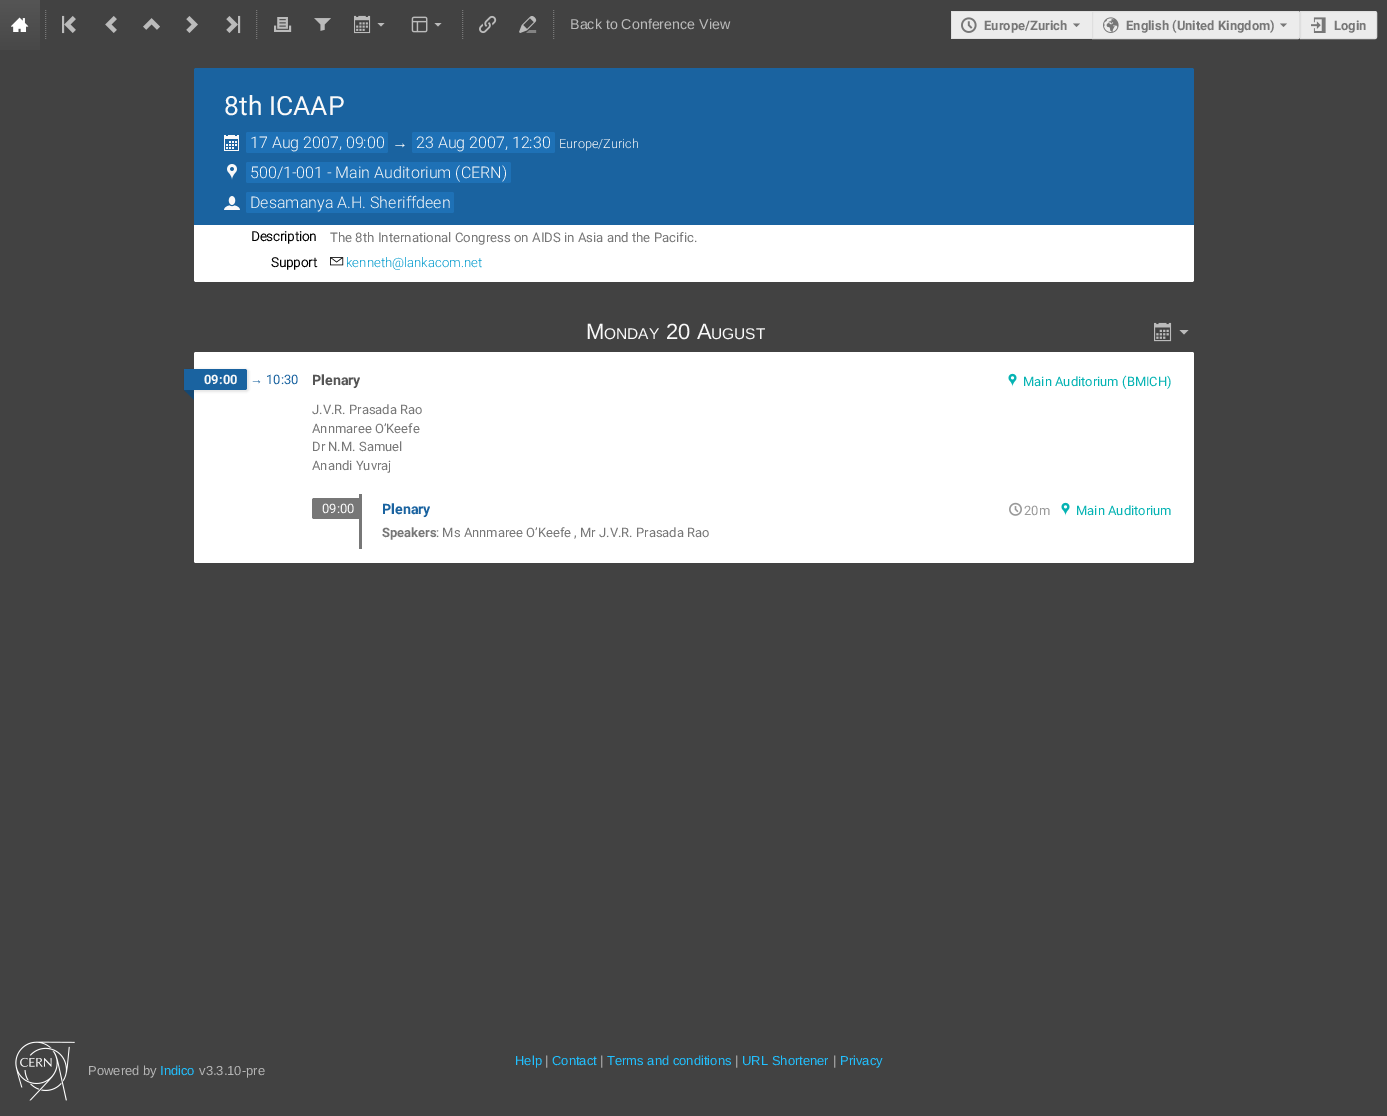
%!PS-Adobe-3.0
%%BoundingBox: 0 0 1387 1116
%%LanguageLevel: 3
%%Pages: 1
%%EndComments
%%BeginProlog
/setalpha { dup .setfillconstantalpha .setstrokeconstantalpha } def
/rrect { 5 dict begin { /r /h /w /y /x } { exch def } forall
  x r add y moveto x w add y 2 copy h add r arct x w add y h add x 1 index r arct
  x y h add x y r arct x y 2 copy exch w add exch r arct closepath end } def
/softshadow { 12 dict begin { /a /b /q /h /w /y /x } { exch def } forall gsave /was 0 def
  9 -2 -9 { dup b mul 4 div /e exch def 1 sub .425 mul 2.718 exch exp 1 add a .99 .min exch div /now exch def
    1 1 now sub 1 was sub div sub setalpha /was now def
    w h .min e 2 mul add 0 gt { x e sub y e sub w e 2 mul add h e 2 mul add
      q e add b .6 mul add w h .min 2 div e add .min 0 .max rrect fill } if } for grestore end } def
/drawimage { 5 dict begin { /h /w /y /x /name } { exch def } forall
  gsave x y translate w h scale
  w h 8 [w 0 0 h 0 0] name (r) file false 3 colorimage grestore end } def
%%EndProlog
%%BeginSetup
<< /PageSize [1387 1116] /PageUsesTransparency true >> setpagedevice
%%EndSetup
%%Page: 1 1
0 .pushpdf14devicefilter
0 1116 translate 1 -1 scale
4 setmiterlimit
0.259 setgray
0 0 1387 1116 rectfill
gsave newpath 0 0 moveto 40 0 lineto 40 50 lineto 0 50 lineto closepath clip newpath
<< /ShadingType 2 /ColorSpace /DeviceRGB /Coords [20 0 20 50] /Extend [true true] /Function << /FunctionType 2 /Domain [0 1] /C0 [0.333 0.333 0.333] /C1 [0.282 0.282 0.282] /N 1 >> >> shfill grestore
(images/1.raw) 11 17 18 15 drawimage
0.467 setgray
[1 1] 0 setdash
newpath 45.5 10 moveto 45.5 40 lineto stroke
(images/2.raw) 62 15 14 19 drawimage
(images/3.raw) 105 16 12 17 drawimage
(images/4.raw) 143 18 17 12 drawimage
(images/5.raw) 186 16 12 17 drawimage
(images/6.raw) 226 15 15 19 drawimage
newpath 256.5 10 moveto 256.5 40 lineto stroke
(images/7.raw) 274 17 18 15 drawimage
(images/8.raw) 314 18 17 13 drawimage
(images/9.raw) 354 15 17 19 drawimage
0.733 setgray
newpath 377.5 23 moveto 381 26.5 lineto 384.5 23 lineto closepath fill
(images/10.raw) 411 16 17 17 drawimage
newpath 434.5 23 moveto 438 26.5 lineto 441.5 23 lineto closepath fill
0.467 setgray
newpath 462.5 10 moveto 462.5 40 lineto stroke
(images/11.raw) 479 15 18 19 drawimage
(images/12.raw) 519 16 18 17 drawimage
newpath 553.5 10 moveto 553.5 40 lineto stroke
0.925 setgray
952 12 140 26 rectfill
0.875 setgray
951 11 141 1 rectfill
951 38 141 1 rectfill
951 11 1 28 rectfill
(images/13.raw) 961 17 16 16 drawimage
0.467 setgray
newpath 1073 23.5 moveto 1076.5 27 lineto 1080 23.5 lineto closepath fill
0.925 setgray
newpath 1092.5 11.5 moveto 1298 11.5 lineto 1299 11.5 1299.5 12 1299.5 13 curveto 1299.5 37 lineto 1299.5 38 1299 38.5 1298 38.5 curveto 1092.5 38.5 lineto closepath gsave fill grestore
0.875 setgray
[] 0 setdash
stroke
(images/14.raw) 1103 17 16 16 drawimage
0.467 setgray
newpath 1280 23.5 moveto 1283.5 27 lineto 1287 23.5 lineto closepath fill
0.925 setgray
newpath 1300.5 11.5 moveto 1375 11.5 lineto 1376 11.5 1376.5 12 1376.5 13 curveto 1376.5 37 lineto 1376.5 38 1376 38.5 1375 38.5 curveto 1300.5 38.5 lineto closepath gsave fill grestore
0.875 setgray
stroke
(images/15.raw) 1311 17 15 16 drawimage
0.102 0.388 0.627 setrgbcolor
newpath 196 68 moveto 1192 68 lineto 1193 68 1194 69 1194 70 curveto 1194 225 lineto 194 225 lineto 194 70 lineto 194 69 195 68 196 68 curveto closepath fill
(images/16.raw) 224 135 15 16 drawimage
0.118 0.443 0.714 setrgbcolor
246 132 142 21 2 rrect fill
412 132 143 21 2 rrect fill
(images/17.raw) 227 164 10 16 drawimage
246 162 265 21 2 rrect fill
(images/18.raw) 224 196 16 14 drawimage
246 192 208 21 2 rrect fill
1 setgray
newpath 194 225 moveto 1194 225 lineto 1194 280 lineto 1194 281 1193 282 1192 282 curveto 196 282 lineto 195 282 194 281 194 280 curveto closepath fill
(images/19.raw) 330 257 14 9 drawimage
(images/20.raw) 1154 322 18 20 drawimage
0.733 setgray
newpath 1179.5 330 moveto 1184 334.5 lineto 1188.5 330 lineto closepath fill
1 setgray
194 352 1000 211 2 rrect fill
0 setgray
184 369 65 23 3 1 0.1 softshadow
0.102 0.388 0.627 setrgbcolor
newpath 184 369 moveto 245 369 lineto 246 369 247 370 247 371 curveto 247 388 lineto 247 389 246 390 245 390 curveto 184 390 lineto closepath fill
0.075 0.282 0.455 setrgbcolor
newpath 184 390 moveto 194 390 lineto 189 395 lineto closepath fill
newpath 194 390 moveto 194 400 lineto 189 395 lineto closepath fill
(images/21.raw) 1008 373 9 14 drawimage
0.467 setgray
359 494 3 55 rectfill
newpath 314 498 moveto 359 498 lineto 359 519 lineto 314 519 lineto 313 519 312 518 312 517 curveto 312 500 lineto 312 499 313 498 314 498 curveto closepath fill
(images/22.raw) 1009 502 13 14 drawimage
(images/21.raw) 1061 502 9 14 drawimage
(images/23.raw) 15 1041 60 60 drawimage
/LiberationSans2-Regular [14.25 0 0 -14.25 0 0] selectfont
0.733 setgray
570 29 moveto (Back to Conference View) show
/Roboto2-Bold [13 0 0 -13 0 0] selectfont
0.467 setgray
984 30 moveto (Europe/Zurich) show
1126 30 moveto (English \(United Kingdom\)) show
1334 30 moveto (Login) show
/Roboto-Regular [26.5 0 0 -26.5 0 0] selectfont
0.976 setgray
224 115 moveto (8th ICAAP) show
/Roboto-Light [16 0 0 -16 0 0] selectfont
250 148 moveto (17 Aug 2007, 09:00) show
/LiberationSans-Regular [16 0 0 -16 0 0] selectfont
392 148 moveto (→) show
/Roboto-Light [16 0 0 -16 0 0] selectfont
416 148 moveto (23 Aug 2007, 12:30) show
/Roboto-Light [12.75 0 0 -12.75 0 0] selectfont
559 148 moveto (Europe/Zurich) show
/Roboto-Light [16 0 0 -16 0 0] selectfont
250 178 moveto (500/1-001 - Main Auditorium \(CERN\)) show
250 208 moveto (Desamanya A.H. Sheriffdeen) show
/Roboto-Bold [13.2 0 0 -13.2 0 0] selectfont
0 setgray
251 241 moveto (Description) show
/Roboto-Regular [13.2 0 0 -13.2 0 0] selectfont
0.467 setgray
330 242 moveto (The 8th International Congress on AIDS in Asia and the Pacific.) show
/Roboto-Bold [13.2 0 0 -13.2 0 0] selectfont
0 setgray
271 267 moveto (Support) show
/Roboto-Light [13.2 0 0 -13.2 0 0] selectfont
0 0.6 0.8 setrgbcolor
346 267 moveto (kenneth@lankacom.net) show
/LiberationSans2-Regular [22 0 0 -22 0 0] selectfont
0.976 setgray
586 339 moveto (M) show
/LiberationSans2-Regular [15.5 0 0 -15.5 0 0] selectfont
604 339 moveto (ONDAY) show
/LiberationSans2-Regular [22 0 0 -22 0 0] selectfont
666 339 moveto (20 A) show
/LiberationSans2-Regular [15.5 0 0 -15.5 0 0] selectfont
711 339 moveto (UGUST) show
/Roboto2-Bold [13 0 0 -13 0 0] selectfont
204 384 moveto (09:00) show
/LiberationSans-Regular [13 0 0 -13 0 0] selectfont
0.102 0.388 0.627 setrgbcolor
250 384 moveto (→) show
/Roboto-Regular [13 0 0 -13 0 0] selectfont
266 384 moveto (10:30) show
/Roboto2-Bold [14.25 0 0 -14.25 0 0] selectfont
0.333 setgray
312 385 moveto (Plenary) show
/Roboto-Regular [13 0 0 -13 0 0] selectfont
0.02 0.702 0.702 setrgbcolor
1023 386 moveto (Main Auditorium \(BMICH\)) show
0.467 setgray
312 414 moveto (J.V.R. Prasada Rao) show
312 433 moveto (Annmaree O’Keefe) show
312 451 moveto (Dr N.M. Samuel) show
312 470 moveto (Anandi Yuvraj) show
0.976 setgray
322 513 moveto (09:00) show
/Roboto2-Bold [14.25 0 0 -14.25 0 0] selectfont
0.102 0.388 0.627 setrgbcolor
382 514 moveto (Plenary) show
/Roboto-Regular [13 0 0 -13 0 0] selectfont
0.6 setgray
1024 515 moveto (20m) show
0.02 0.702 0.702 setrgbcolor
1076 515 moveto (Main Auditorium) show
/Roboto2-Bold [13 0 0 -13 0 0] selectfont
0.467 setgray
382 537 moveto (Speakers) show
/Roboto-Regular [13 0 0 -13 0 0] selectfont
436 537 moveto (: Ms Annmaree O’Keefe , Mr J.V.R. Prasada Rao) show
/LiberationSans2-Regular [13 0 0 -13 0 0] selectfont
0.129 0.753 1 setrgbcolor
515 1065 moveto (Help) show
0.733 setgray
545 1065 moveto (|) show
0.129 0.753 1 setrgbcolor
552 1065 moveto (Contact) show
0.733 setgray
600 1065 moveto (|) show
0.129 0.753 1 setrgbcolor
607 1065 moveto (Terms and conditions) show
0.733 setgray
735 1065 moveto (|) show
0.129 0.753 1 setrgbcolor
742 1065 moveto (URL Shortener) show
0.733 setgray
833 1065 moveto (|) show
0.129 0.753 1 setrgbcolor
840 1065 moveto (Privacy) show
0.71 setgray
88 1075 moveto (Powered by) show
0.129 0.753 1 setrgbcolor
160 1075 moveto (Indico) show
0.71 setgray
199 1075 moveto (v3.3.10-pre) show
.poppdf14devicefilter showpage
%%EOF
